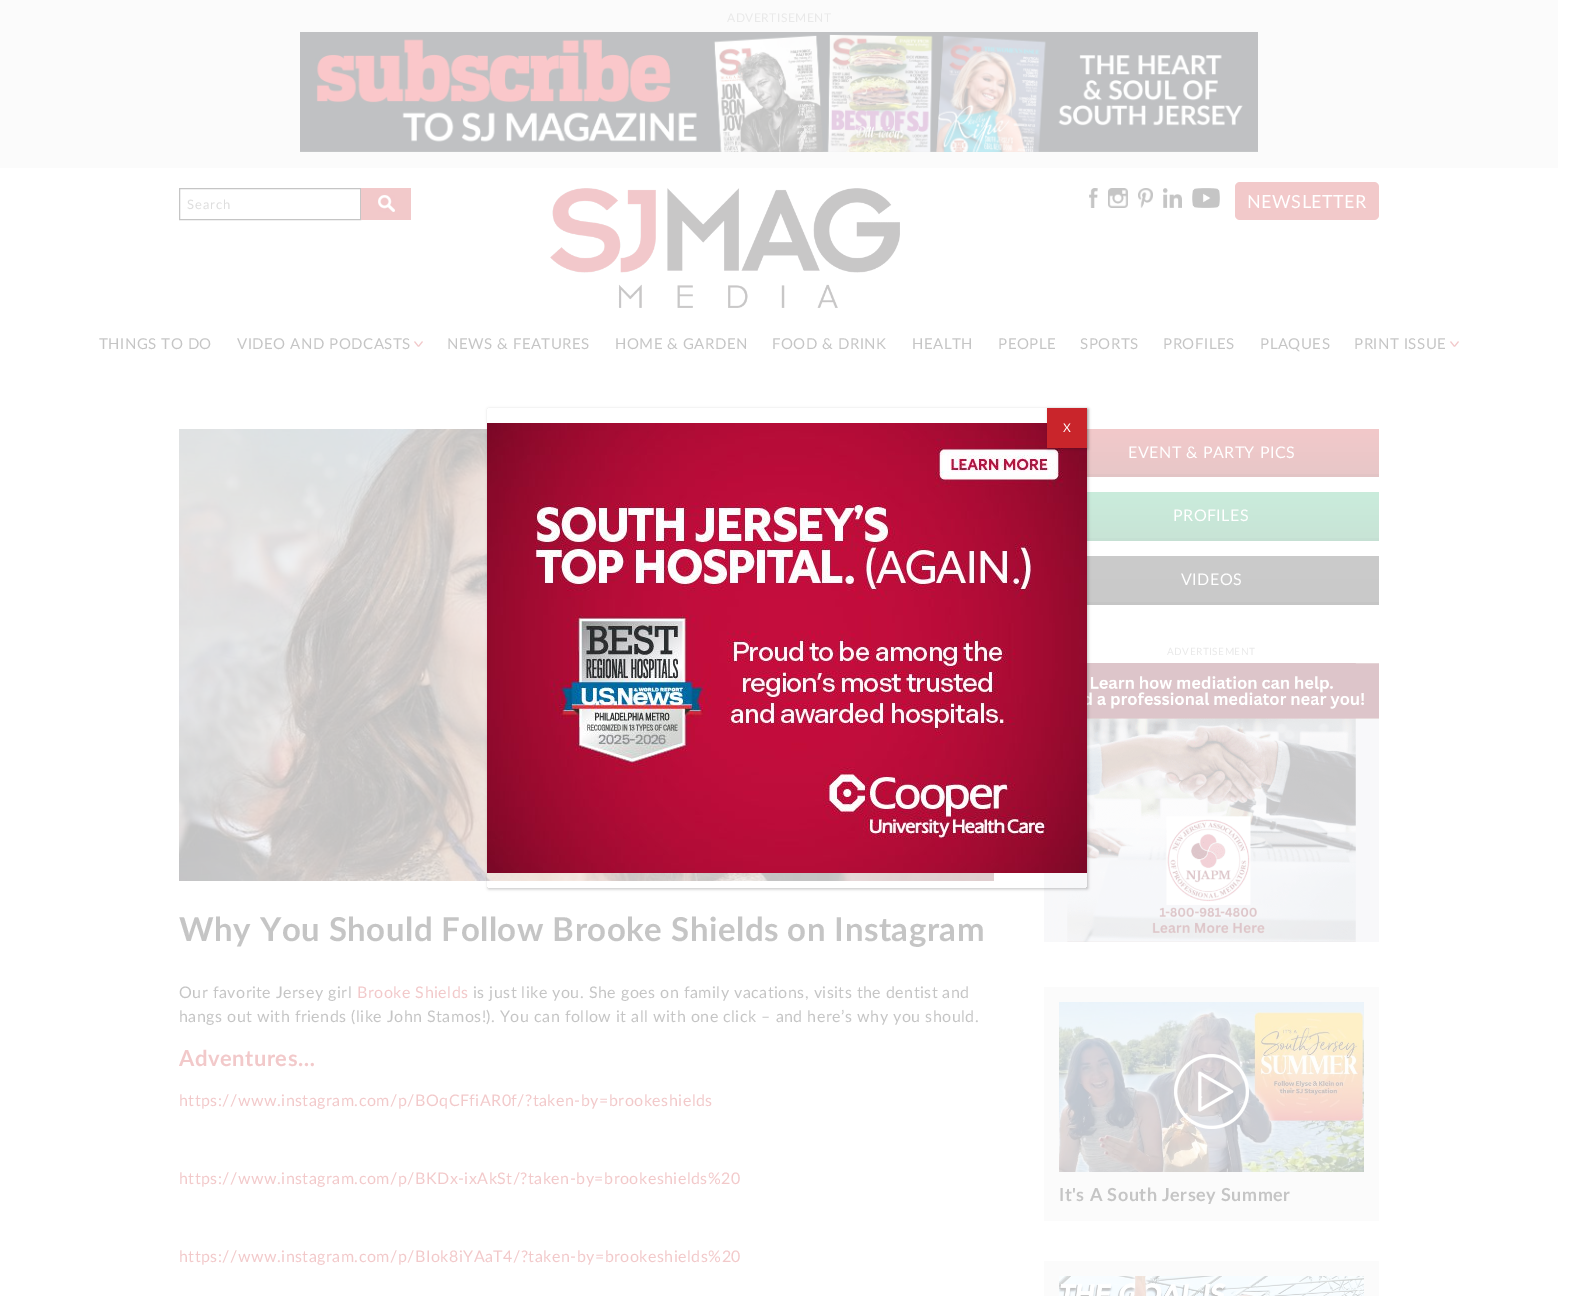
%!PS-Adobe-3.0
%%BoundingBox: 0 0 1573 1296
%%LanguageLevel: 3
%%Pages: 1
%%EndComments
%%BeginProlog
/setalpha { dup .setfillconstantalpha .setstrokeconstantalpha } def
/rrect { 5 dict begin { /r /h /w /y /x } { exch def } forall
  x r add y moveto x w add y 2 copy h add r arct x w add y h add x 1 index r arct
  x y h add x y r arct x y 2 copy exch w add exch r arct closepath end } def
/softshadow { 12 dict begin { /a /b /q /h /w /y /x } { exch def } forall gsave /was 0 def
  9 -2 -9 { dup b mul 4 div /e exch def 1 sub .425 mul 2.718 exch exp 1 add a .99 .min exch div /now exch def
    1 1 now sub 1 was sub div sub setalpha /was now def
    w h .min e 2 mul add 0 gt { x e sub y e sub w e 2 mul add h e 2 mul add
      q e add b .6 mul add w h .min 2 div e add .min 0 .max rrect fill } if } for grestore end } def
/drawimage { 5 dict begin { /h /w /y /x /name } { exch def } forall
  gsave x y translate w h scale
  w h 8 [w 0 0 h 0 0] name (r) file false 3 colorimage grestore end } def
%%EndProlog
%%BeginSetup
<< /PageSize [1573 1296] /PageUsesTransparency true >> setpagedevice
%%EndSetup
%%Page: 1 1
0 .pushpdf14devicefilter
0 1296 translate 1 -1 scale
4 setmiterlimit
1 setgray
0 0 1573 1296 rectfill
0.984 setgray
0 0 1558 168 rectfill
(images/1.raw) 300 32 958 120 drawimage
0.773 setgray
179.5 188.5 181 31 rectstroke
0.949 0.788 0.792 setrgbcolor
361 188 50 32 rectfill
(images/2.raw) 378 195 17 17 drawimage
(images/3.raw) 550 188 350 120 drawimage
(images/4.raw) 1089 188 9 20 drawimage
(images/5.raw) 1108 188 20 20 drawimage
(images/6.raw) 1138 188 15 20 drawimage
(images/7.raw) 1163 188 19 20 drawimage
(images/8.raw) 1192 188 28 20 drawimage
1235 182 144 38 5 rrect fill
(images/9.raw) 414 341 9 6 drawimage
(images/9.raw) 1450 341 9 6 drawimage
(images/10.raw) 179 429 815 452 drawimage
gsave newpath 1087 429 moveto 1379 429 lineto 1379 474 lineto 1087 474 lineto closepath clip newpath
<< /ShadingType 2 /ColorSpace /DeviceRGB /Coords [1212 429 1212 474] /Extend [true true] /Function << /FunctionType 2 /Domain [0 1] /C0 [0.949 0.788 0.792] /C1 [0.91 0.78 0.784] /N 1 >> >> shfill grestore
0.886 0.769 0.773 setrgbcolor
1087 474 292 3 rectfill
gsave newpath 1087 492 moveto 1379 492 lineto 1379 538 lineto 1087 538 lineto closepath clip newpath
<< /ShadingType 2 /ColorSpace /DeviceRGB /Coords [1212 492 1212 538] /Extend [true true] /Function << /FunctionType 2 /Domain [0 1] /C0 [0.792 0.925 0.863] /C1 [0.784 0.894 0.839] /N 1 >> >> shfill grestore
0.773 0.878 0.827 setrgbcolor
1087 538 292 3 rectfill
gsave newpath 1087 556 moveto 1379 556 lineto 1379 602 lineto 1087 602 lineto closepath clip newpath
<< /ShadingType 2 /ColorSpace /DeviceRGB /Coords [1212 556 1212 602] /Extend [true true] /Function << /FunctionType 2 /Domain [0 1] /C0 [0.796 0.796 0.796] /C1 [0.788 0.788 0.788] /N 1 >> >> shfill grestore
0.773 setgray
1087 602 292 3 rectfill
(images/11.raw) 1044 663 335 279 drawimage
0.984 setgray
1044 987 335 234 rectfill
(images/12.raw) 1059 1002 305 170 drawimage
(images/13.raw) 1174 1054 75 75 drawimage
1044 1261 335 35 rectfill
(images/14.raw) 1059 1276 305 20 drawimage
gsave
newpath 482 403 moveto 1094 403 lineto 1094 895 lineto 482 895 lineto closepath 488 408 moveto 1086 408 lineto 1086.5 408 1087 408.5 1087 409 curveto 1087 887 lineto 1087 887.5 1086.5 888 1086 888 curveto 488 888 lineto 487.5 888 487 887.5 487 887 curveto 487 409 lineto 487 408.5 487.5 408 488 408 curveto closepath eoclip newpath
0.008 setgray
488 409 600 480 1 1.5 0.23 softshadow
grestore
(images/15.raw) 487 423 600 450 drawimage
0.008 setgray
1048 409 40 40 0 1.5 0.23 softshadow
0.788 0.145 0.169 setrgbcolor
1047 408 40 40 rectfill
/Lato-Regular [12 0 0 -12 0 0] selectfont
0.914 setgray
727 22 moveto 0.5 0 (ADVERTISEMENT) ashow
/Lato-Regular [13 0 0 -13 0 0] selectfont
0.867 setgray
187 209 moveto 1 0 (Search) ashow
/Lato-Regular [18 0 0 -18 0 0] selectfont
1 setgray
1247 208 moveto 0.5 0 (NEWSLETTER) ashow
/Lato-Regular [15 0 0 -15 0 0] selectfont
0.773 setgray
99 349 moveto 0.5 0 (THINGS TO DO) ashow
237 349 moveto 0.5 0 (VIDEO AND PODCASTS) ashow
447 349 moveto 0.5 0 (NEWS & FEATURES) ashow
615 349 moveto 0.5 0 (HOME & GARDEN) ashow
772 349 moveto 0.5 0 (FOOD & DRINK) ashow
912 349 moveto 0.5 0 (HEALTH) ashow
998 349 moveto 0.5 0 (PEOPLE) ashow
1080 349 moveto 0.5 0 (SPORTS) ashow
1163 349 moveto 0.5 0 (PROFILES) ashow
1260 349 moveto 0.5 0 (PLAQUES) ashow
1354 349 moveto 0.5 0 (PRINT ISSUE) ashow
/Lato-Bold [33 0 0 -33 0 0] selectfont
179 941 moveto 0.5 0 (Why You Should Follow Brooke Shields on Instagram) ashow
/Lato-Regular [16 0 0 -16 0 0] selectfont
179 998 moveto 0.5 0 (Our favorite Jersey girl) ashow
0.949 0.788 0.792 setrgbcolor
357 998 moveto 0.5 0 (Brooke Shields) ashow
0.773 setgray
473 998 moveto 0.5 0 (is just like you. She goes on family vacations, visits the dentist and) ashow
179 1022 moveto 0.5 0 (hangs out with friends \(like John Stamos!\). You can follow it all with one click – and here’s why you should.) ashow
/Lato-Bold [22 0 0 -22 0 0] selectfont
0.949 0.788 0.792 setrgbcolor
179 1066 moveto 0.5 0 (Adventures…) ashow
/Lato-Regular [16 0 0 -16 0 0] selectfont
179 1106 moveto 0.5 0 (https://www.instagram.com/p/BOqCFfiAR0f/?taken-by=brookeshields) ashow
179 1184 moveto 0.5 0 (https://www.instagram.com/p/BKDx-ixAkSt/?taken-by=brookeshields%20) ashow
179 1262 moveto 0.5 0 (https://www.instagram.com/p/BIok8iYAaT4/?taken-by=brookeshields%20) ashow
1 setgray
1128 458 moveto 0.5 0 (EVENT & PARTY PICS) ashow
1173 521 moveto 0.5 0 (PROFILES) ashow
1181 585 moveto 0.5 0 (VIDEOS) ashow
/Lato-Regular [10 0 0 -10 0 0] selectfont
0.914 setgray
1167 655 moveto 0.5 0 (ADVERTISEMENT) ashow
/Lato-Bold [18 0 0 -18 0 0] selectfont
0.773 setgray
1059 1201 moveto 0.5 0 (It's A South Jersey Summer) ashow
/Lato-Regular [12 0 0 -12 0 0] selectfont
1 setgray
1063 432 moveto (X) show
.poppdf14devicefilter showpage
%%EOF
